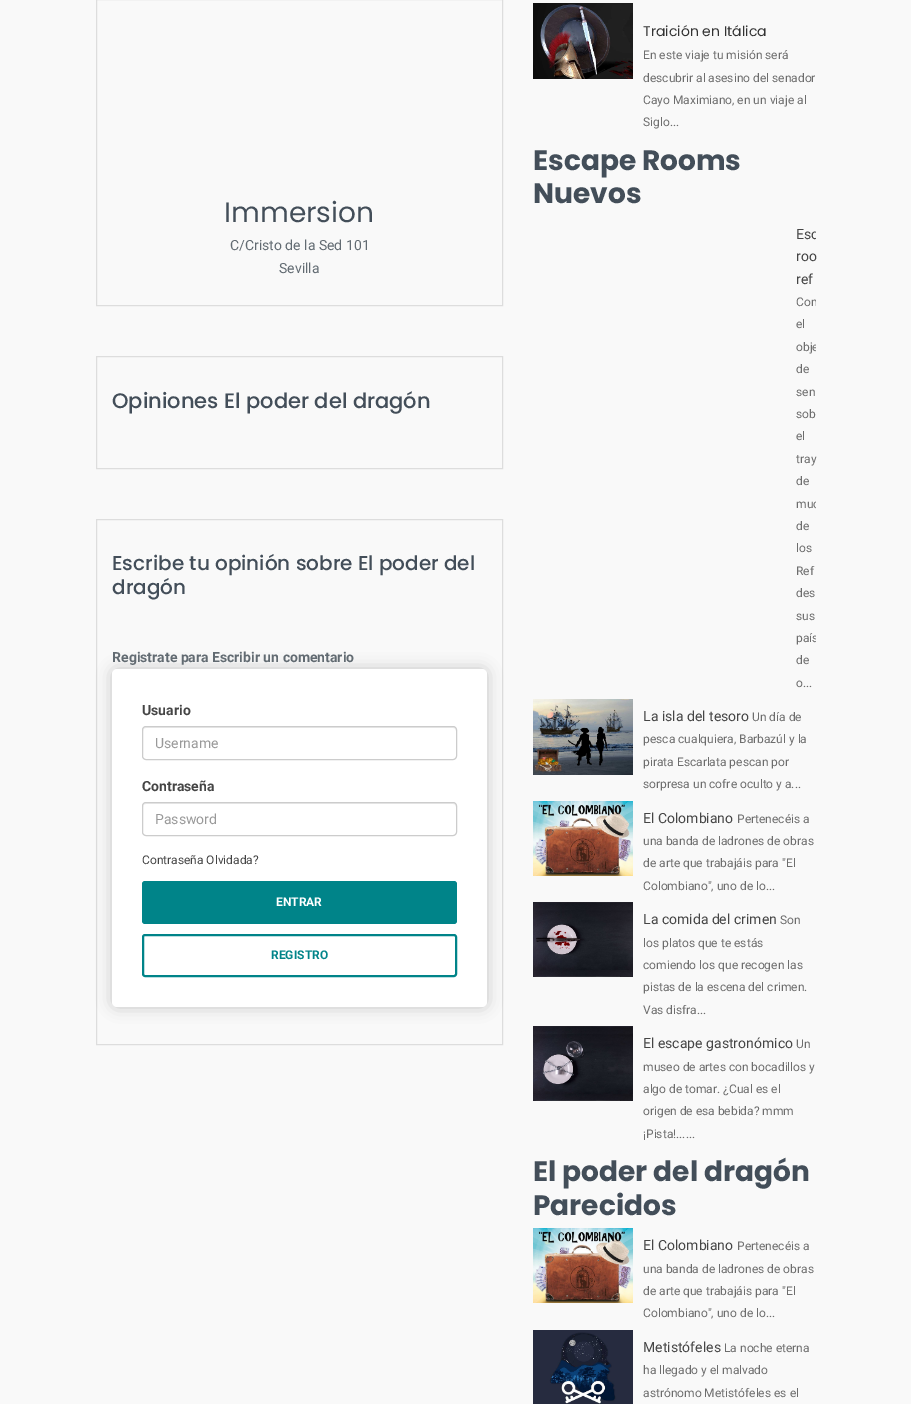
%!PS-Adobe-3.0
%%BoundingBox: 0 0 911 1404
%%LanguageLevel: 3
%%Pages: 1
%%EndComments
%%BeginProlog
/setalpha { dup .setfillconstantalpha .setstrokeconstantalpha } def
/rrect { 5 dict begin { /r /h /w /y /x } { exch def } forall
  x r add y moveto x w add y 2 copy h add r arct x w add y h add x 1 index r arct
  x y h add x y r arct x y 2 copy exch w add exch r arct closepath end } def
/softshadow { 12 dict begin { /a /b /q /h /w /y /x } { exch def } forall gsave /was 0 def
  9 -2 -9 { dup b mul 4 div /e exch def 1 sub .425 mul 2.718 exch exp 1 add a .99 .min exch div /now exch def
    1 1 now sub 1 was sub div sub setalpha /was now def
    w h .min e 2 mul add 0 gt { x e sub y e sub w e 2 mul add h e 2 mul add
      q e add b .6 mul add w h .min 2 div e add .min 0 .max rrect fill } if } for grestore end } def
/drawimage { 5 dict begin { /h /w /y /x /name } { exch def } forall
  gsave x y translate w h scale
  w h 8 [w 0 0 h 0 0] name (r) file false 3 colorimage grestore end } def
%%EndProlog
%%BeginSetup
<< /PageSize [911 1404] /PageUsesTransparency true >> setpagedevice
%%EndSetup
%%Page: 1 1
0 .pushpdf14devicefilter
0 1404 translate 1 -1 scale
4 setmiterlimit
0.976 setgray
0 0 911 1404 rectfill
0.867 setgray
96.5 -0.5 406 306 rectstroke
96.5 356.5 406 112 rectstroke
96.5 519.5 406 525 rectstroke
0 setgray
112 669 375 338 5 7.5 0.2 softshadow
1 setgray
112 669 375 338 5 rrect fill
0.925 setgray
newpath 146 728 moveto 453 728 lineto 455 728 456 729 456 731 curveto 455 728 lineto 454 727 lineto 146 727 lineto 144 727 143 729 143 731 curveto 143 729 144 728 146 728 curveto closepath fill
0.8 setgray
142.5 726.5 314 33 3.5 rrect stroke
0.925 setgray
newpath 146 804 moveto 453 804 lineto 455 804 456 805 456 807 curveto 455 804 lineto 454 803 lineto 146 803 lineto 144 803 143 805 143 807 curveto 143 805 144 804 146 804 curveto closepath fill
0.8 setgray
142.5 802.5 314 33 3.5 rrect stroke
0 0.518 0.537 setrgbcolor
142 881 315 43 3 rrect fill
2 setlinewidth
143 935 313 41 2 rrect stroke
(images/1.raw) 533 3 100 76 drawimage
(images/2.raw) 533 699 100 76 drawimage
(images/3.raw) 533 801 100 75 drawimage
(images/4.raw) 533 902 100 75 drawimage
(images/5.raw) 533 1026 100 75 drawimage
(images/6.raw) 533 1228 100 75 drawimage
(images/7.raw) 533 1330 100 74 drawimage
/Poppins-Regular [28 0 0 -28 0 0] selectfont
0.263 0.306 0.349 setrgbcolor
224 222 moveto (Immersion) show
/Roboto-Regular [14 0 0 -14 0 0] selectfont
0.384 0.42 0.447 setrgbcolor
230 250 moveto (C/Cristo de la Sed 101) show
279 273 moveto (Sevilla) show
/Poppins-Medium [21 0 0 -21 0 0] selectfont
0.263 0.306 0.349 setrgbcolor
112 408 moveto (Opiniones El poder del dragón) show
/Poppins-Medium [20 0 0 -20 0 0] selectfont
112 570 moveto (Escribe tu opinión sobre El poder del) show
112 594 moveto (dragón) show
/Roboto-Bold [14 0 0 -14 0 0] selectfont
0.384 0.42 0.447 setrgbcolor
112 662 moveto (Registrate para Escribir un comentario) show
0.271 setgray
142 715 moveto (Usuario) show
/Roboto-Regular [14 0 0 -14 0 0] selectfont
0.6 setgray
155 748 moveto (Username) show
/Roboto-Bold [14 0 0 -14 0 0] selectfont
0.271 setgray
142 791 moveto (Contraseña) show
/Roboto-Regular [14 0 0 -14 0 0] selectfont
0.6 setgray
155 824 moveto (Password) show
/Roboto-Regular [12 0 0 -12 0 0] selectfont
0.271 setgray
142 864 moveto (Contraseña Olvidada?) show
/Roboto-Bold [12 0 0 -12 0 0] selectfont
1 setgray
276 906 moveto (ENTRAR) show
0 0.518 0.537 setrgbcolor
271 959 moveto (REGISTRO) show
/Poppins-Regular [14 0 0 -14 0 0] selectfont
0.2 setgray
643 36 moveto (Traición en Itálica) show
/Roboto-Regular [12 0 0 -12 0 0] selectfont
0.427 setgray
643 59 moveto (En este viaje tu misión será) show
643 82 moveto (descubrir al asesino del senador) show
643 104 moveto (Cayo Maximiano, en un viaje al) show
643 126 moveto (Siglo...) show
/Poppins-Bold [28 0 0 -28 0 0] selectfont
0.263 0.306 0.349 setrgbcolor
533 170 moveto (Escape Rooms) show
533 203 moveto (Nuevos) show
gsave
796 211 20 482 rectclip
/Roboto-Regular [14 0 0 -14 0 0] selectfont
0.271 setgray
796 239 moveto (Esc) show
grestore
/Roboto-Regular [14 0 0 -14 0 0] selectfont
0.271 setgray
796 261 moveto (roo) show
796 284 moveto (ref) show
gsave
796 211 20 482 rectclip
/Roboto-Regular [12 0 0 -12 0 0] selectfont
0.427 setgray
796 306 moveto (Con) show
grestore
/Roboto-Regular [12 0 0 -12 0 0] selectfont
0.427 setgray
796 328 moveto (el) show
gsave
796 211 20 482 rectclip
796 351 moveto (obje) show
grestore
796 373 moveto (de) show
796 396 moveto (sen) show
796 418 moveto (sob) show
796 440 moveto (el) show
796 463 moveto (tray) show
796 485 moveto (de) show
gsave
796 211 20 482 rectclip
796 508 moveto (muc) show
grestore
796 530 moveto (de) show
796 552 moveto (los) show
796 575 moveto (Ref) show
796 597 moveto (des) show
796 620 moveto (sus) show
gsave
796 211 20 482 rectclip
796 642 moveto (país) show
grestore
796 664 moveto (de) show
796 687 moveto (o...) show
/Roboto-Regular [14 0 0 -14 0 0] selectfont
0.271 setgray
643 721 moveto (La isla del tesoro) show
/Roboto-Regular [12 0 0 -12 0 0] selectfont
0.427 setgray
752 721 moveto (Un día de) show
643 743 moveto (pesca cualquiera, Barbazúl y la) show
643 766 moveto (pirata Escarlata pescan por) show
643 788 moveto (sorpresa un cofre oculto y a...) show
/Roboto-Regular [14 0 0 -14 0 0] selectfont
0.271 setgray
643 823 moveto (El Colombiano) show
/Roboto-Regular [12 0 0 -12 0 0] selectfont
0.427 setgray
737 823 moveto (Pertenecéis a) show
643 845 moveto (una banda de ladrones de obras) show
643 867 moveto (de arte que trabajáis para "El) show
643 890 moveto (Colombiano", uno de lo...) show
/Roboto-Regular [14 0 0 -14 0 0] selectfont
0.271 setgray
643 924 moveto (La comida del crimen) show
/Roboto-Regular [12 0 0 -12 0 0] selectfont
0.427 setgray
780 924 moveto (Son) show
643 947 moveto (los platos que te estás) show
643 969 moveto (comiendo los que recogen las) show
643 991 moveto (pistas de la escena del crimen.) show
643 1014 moveto (Vas disfra...) show
/Roboto-Regular [14 0 0 -14 0 0] selectfont
0.271 setgray
643 1048 moveto (El escape gastronómico) show
/Roboto-Regular [12 0 0 -12 0 0] selectfont
0.427 setgray
796 1048 moveto (Un) show
643 1071 moveto (museo de artes con bocadillos y) show
643 1093 moveto (algo de tomar. ¿Cual es el) show
643 1115 moveto (origen de esa bebida? mmm) show
643 1138 moveto (¡Pista!......) show
/Poppins-Bold [28 0 0 -28 0 0] selectfont
0.263 0.306 0.349 setrgbcolor
533 1181 moveto (El poder del dragón) show
533 1215 moveto (Parecidos) show
/Roboto-Regular [14 0 0 -14 0 0] selectfont
0.271 setgray
643 1250 moveto (El Colombiano) show
/Roboto-Regular [12 0 0 -12 0 0] selectfont
0.427 setgray
737 1250 moveto (Pertenecéis a) show
643 1273 moveto (una banda de ladrones de obras) show
643 1295 moveto (de arte que trabajáis para "El) show
643 1317 moveto (Colombiano", uno de lo...) show
/Roboto-Regular [14 0 0 -14 0 0] selectfont
0.271 setgray
643 1352 moveto (Metistófeles) show
/Roboto-Regular [12 0 0 -12 0 0] selectfont
0.427 setgray
724 1352 moveto (La noche eterna) show
643 1374 moveto (ha llegado y el malvado) show
643 1397 moveto (astrónomo Metistófeles es el) show
.poppdf14devicefilter showpage
%%EOF
